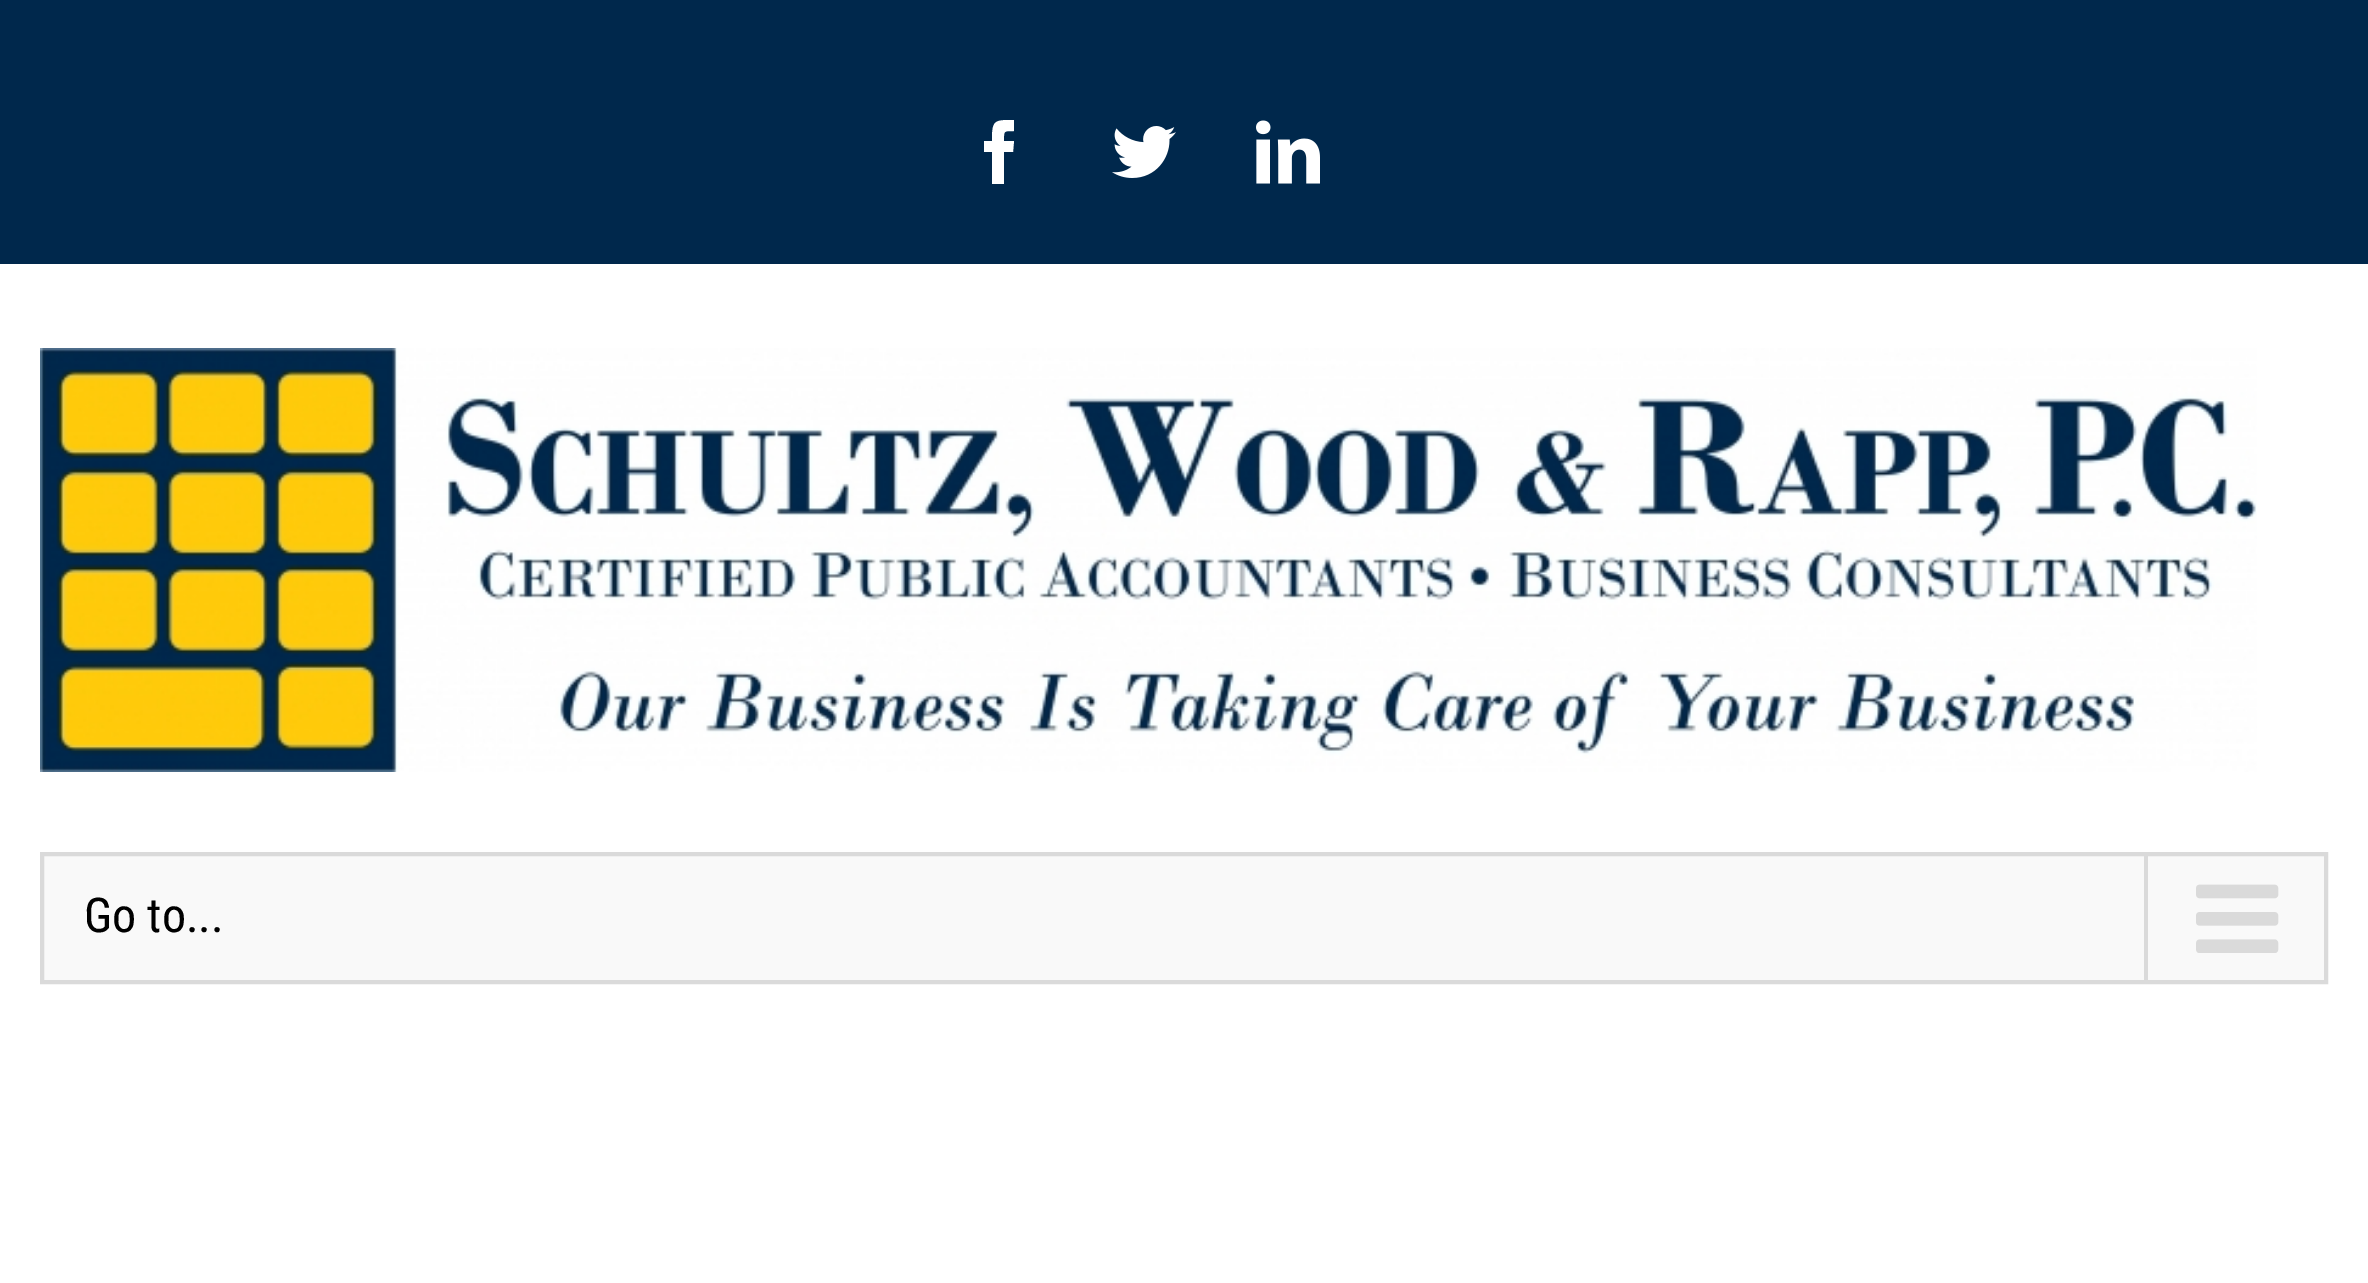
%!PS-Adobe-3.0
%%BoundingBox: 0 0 2368 1283
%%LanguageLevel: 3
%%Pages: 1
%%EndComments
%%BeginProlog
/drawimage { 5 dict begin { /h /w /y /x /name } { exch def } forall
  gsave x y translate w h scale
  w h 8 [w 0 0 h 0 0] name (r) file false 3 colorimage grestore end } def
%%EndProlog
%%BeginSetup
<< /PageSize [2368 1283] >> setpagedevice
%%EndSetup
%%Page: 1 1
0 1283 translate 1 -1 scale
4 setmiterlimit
1 setgray
0 0 2368 1283 rectfill
0 0.157 0.298 setrgbcolor
0 0 2368 264 rectfill
1 setgray
newpath 1004 184 moveto 992 184 lineto 992 152 lineto 984 152 lineto 984 141 lineto 992 141 lineto 992 120 994 120 1014 120 curveto 1014 131 lineto 1003 131 1004 131 1004 141 curveto 1014 141 lineto 1013 152 lineto 1004 152 lineto closepath fill
(images/1.raw) 1112 126 64 52 drawimage
(images/2.raw) 1256 120 64 64 drawimage
(images/3.raw) 40 348 2217 424 drawimage
0.976 setgray
newpath 42 854 moveto 2326 854 lineto 2326 982 lineto 42 982 lineto closepath gsave fill grestore
0.855 setgray
4 setlinewidth
stroke
2144 856 4 124 rectfill
(images/4.raw) 2196 884 83 69 drawimage
/RobotoCondensed-Regular [48 0 0 -48 0 0] selectfont
0 setgray
84 932 moveto (Go to...) show
showpage
%%EOF
